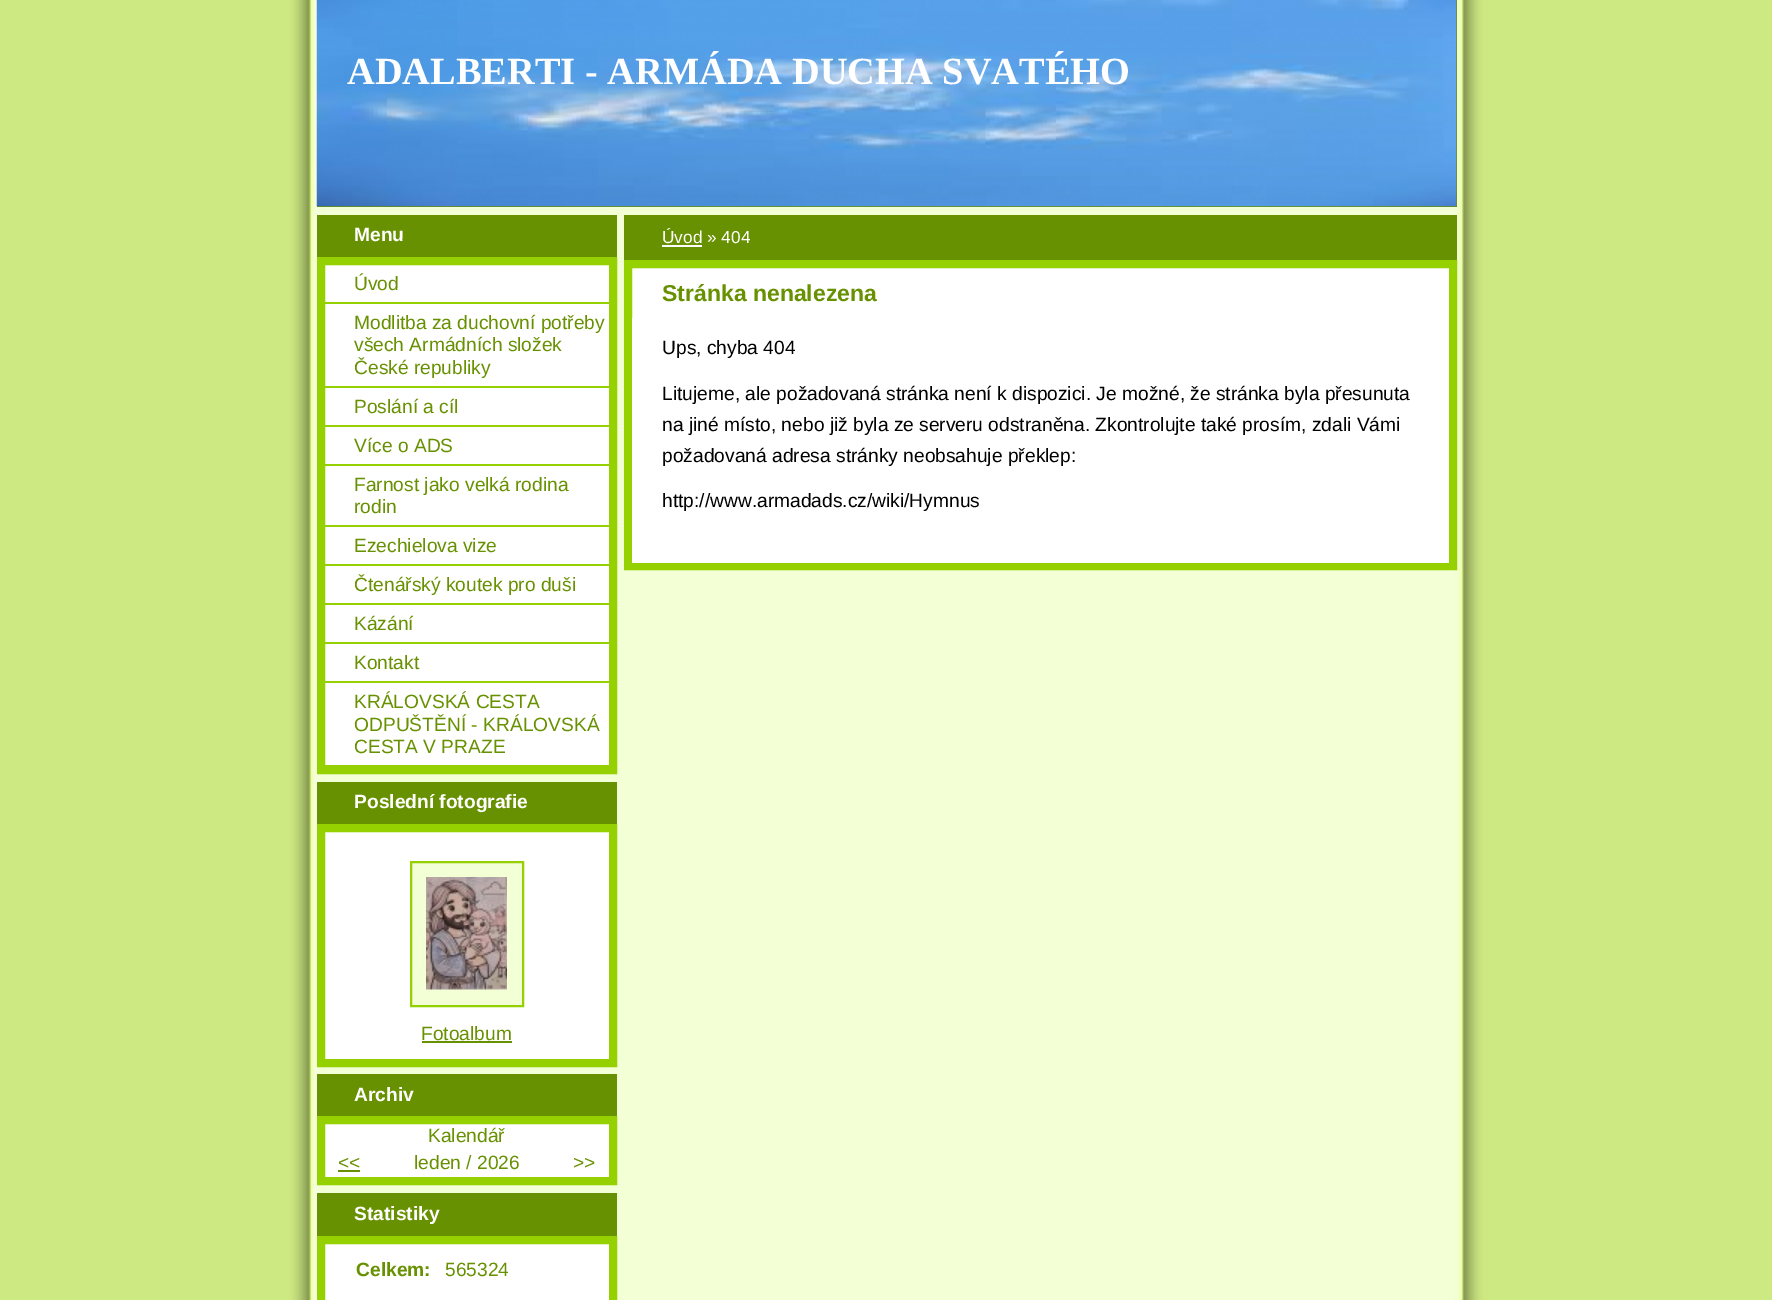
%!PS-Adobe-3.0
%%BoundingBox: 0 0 1772 1300
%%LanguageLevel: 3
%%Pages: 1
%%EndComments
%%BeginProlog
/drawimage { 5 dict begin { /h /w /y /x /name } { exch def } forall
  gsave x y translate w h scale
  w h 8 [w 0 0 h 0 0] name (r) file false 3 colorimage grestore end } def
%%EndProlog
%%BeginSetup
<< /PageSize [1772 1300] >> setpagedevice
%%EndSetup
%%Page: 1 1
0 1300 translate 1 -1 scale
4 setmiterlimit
0.8 0.918 0.506 setrgbcolor
0 0 1772 1300 rectfill
(images/1.raw) 279 0 1215 1300 drawimage
0.408 0.569 0.004 setrgbcolor
317 0 1140 207 rectfill
(images/2.raw) 316 0 1141 207 drawimage
317 215 300 42 rectfill
1 setgray
325 265 284 500 rectfill
0.584 0.816 0.004 setrgbcolor
8 setlinewidth
321 261 292 509 rectstroke
324 302 285 2 rectfill
324 386 285 2 rectfill
324 425 285 2 rectfill
324 464 285 2 rectfill
324 525 285 2 rectfill
324 564 285 2 rectfill
324 603 285 2 rectfill
324 642 285 2 rectfill
324 681 285 2 rectfill
324 765 285 1 rectfill
0.408 0.569 0.004 setrgbcolor
317 782 300 42 rectfill
1 setgray
newpath 321 828 moveto 613 828 lineto 613 1063 lineto 321 1063 lineto closepath gsave fill grestore
0.584 0.816 0.004 setrgbcolor
stroke
0.953 1 0.835 setrgbcolor
newpath 411 862 moveto 523 862 lineto 523 1006 lineto 411 1006 lineto closepath gsave fill grestore
0.584 0.816 0.004 setrgbcolor
2 setlinewidth
stroke
(images/3.raw) 426 877 81 113 drawimage
0.408 0.569 0.004 setrgbcolor
422 1041 90 2 rectfill
317 1074 300 42 rectfill
1 setgray
newpath 321 1120 moveto 613 1120 lineto 613 1181 lineto 321 1181 lineto closepath gsave fill grestore
0.584 0.816 0.004 setrgbcolor
8 setlinewidth
stroke
0.408 0.569 0.004 setrgbcolor
338 1170 22 2 rectfill
317 1193 300 43 rectfill
1 setgray
newpath 321 1240 moveto 613 1240 lineto 613 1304 lineto 321 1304 lineto closepath gsave fill grestore
0.584 0.816 0.004 setrgbcolor
stroke
0.408 0.569 0.004 setrgbcolor
624 215 833 45 rectfill
1 setgray
662 245 40 2 rectfill
632 268 817 50 rectfill
0.584 0.816 0.004 setrgbcolor
628 264 825 302 rectstroke
1 setgray
632 318 817 245 rectfill
/LiberationSerif-Bold [38.4 0 0 -38.4 0 0] selectfont
347 84 moveto (ADALBERTI - ARMÁDA DUCHA SVATÉHO) show
/LiberationSans-Bold [19.2 0 0 -19.2 0 0] selectfont
354 241 moveto (Menu) show
/LiberationSans-Regular [19.2 0 0 -19.2 0 0] selectfont
0.408 0.569 0.004 setrgbcolor
354 290 moveto (Úvod) show
354 329 moveto (Modlitba za duchovní potřeby) show
354 351 moveto (všech Armádních složek) show
354 374 moveto (České republiky) show
354 413 moveto (Poslání a cíl) show
354 452 moveto (Více o ADS) show
354 491 moveto (Farnost jako velká rodina) show
354 513 moveto (rodin) show
354 552 moveto (Ezechielova vize) show
354 591 moveto (Čtenářský koutek pro duši) show
354 630 moveto (Kázání) show
354 669 moveto (Kontakt) show
354 708 moveto (KRÁLOVSKÁ CESTA) show
354 731 moveto (ODPUŠTĚNÍ - KRÁLOVSKÁ) show
354 753 moveto (CESTA V PRAZE) show
/LiberationSans-Bold [19.2 0 0 -19.2 0 0] selectfont
1 setgray
354 808 moveto (Poslední fotografie) show
/LiberationSans-Regular [19.2 0 0 -19.2 0 0] selectfont
0.408 0.569 0.004 setrgbcolor
421 1040 moveto (Fotoalbum) show
/LiberationSans-Bold [19.2 0 0 -19.2 0 0] selectfont
1 setgray
354 1101 moveto (Archiv) show
/LiberationSans-Regular [19.2 0 0 -19.2 0 0] selectfont
0.408 0.569 0.004 setrgbcolor
428 1142 moveto (Kalendář) show
338 1169 moveto (<<) show
414 1169 moveto (leden / 2026) show
573 1169 moveto (>>) show
/LiberationSans-Bold [19.2 0 0 -19.2 0 0] selectfont
1 setgray
354 1220 moveto (Statistiky) show
0.408 0.569 0.004 setrgbcolor
356 1276 moveto (Celkem:) show
/LiberationSans-Regular [19.2 0 0 -19.2 0 0] selectfont
445 1276 moveto (565324) show
/LiberationSans-Regular [17.25 0 0 -17.25 0 0] selectfont
1 setgray
662 243 moveto (Úvod » 404) show
/LiberationSans-Bold [23 0 0 -23 0 0] selectfont
0.408 0.569 0.004 setrgbcolor
662 301 moveto (Stránka nenalezena) show
/LiberationSans-Regular [19.2 0 0 -19.2 0 0] selectfont
0 setgray
662 354 moveto (Ups, chyba 404) show
662 400 moveto (Litujeme, ale požadovaná stránka není k dispozici. Je možné, že stránka byla přesunuta) show
662 431 moveto (na jiné místo, nebo již byla ze serveru odstraněna. Zkontrolujte také prosím, zdali Vámi) show
662 462 moveto (požadovaná adresa stránky neobsahuje překlep:) show
662 507 moveto (http://www.armadads.cz/wiki/Hymnus) show
showpage
%%EOF
